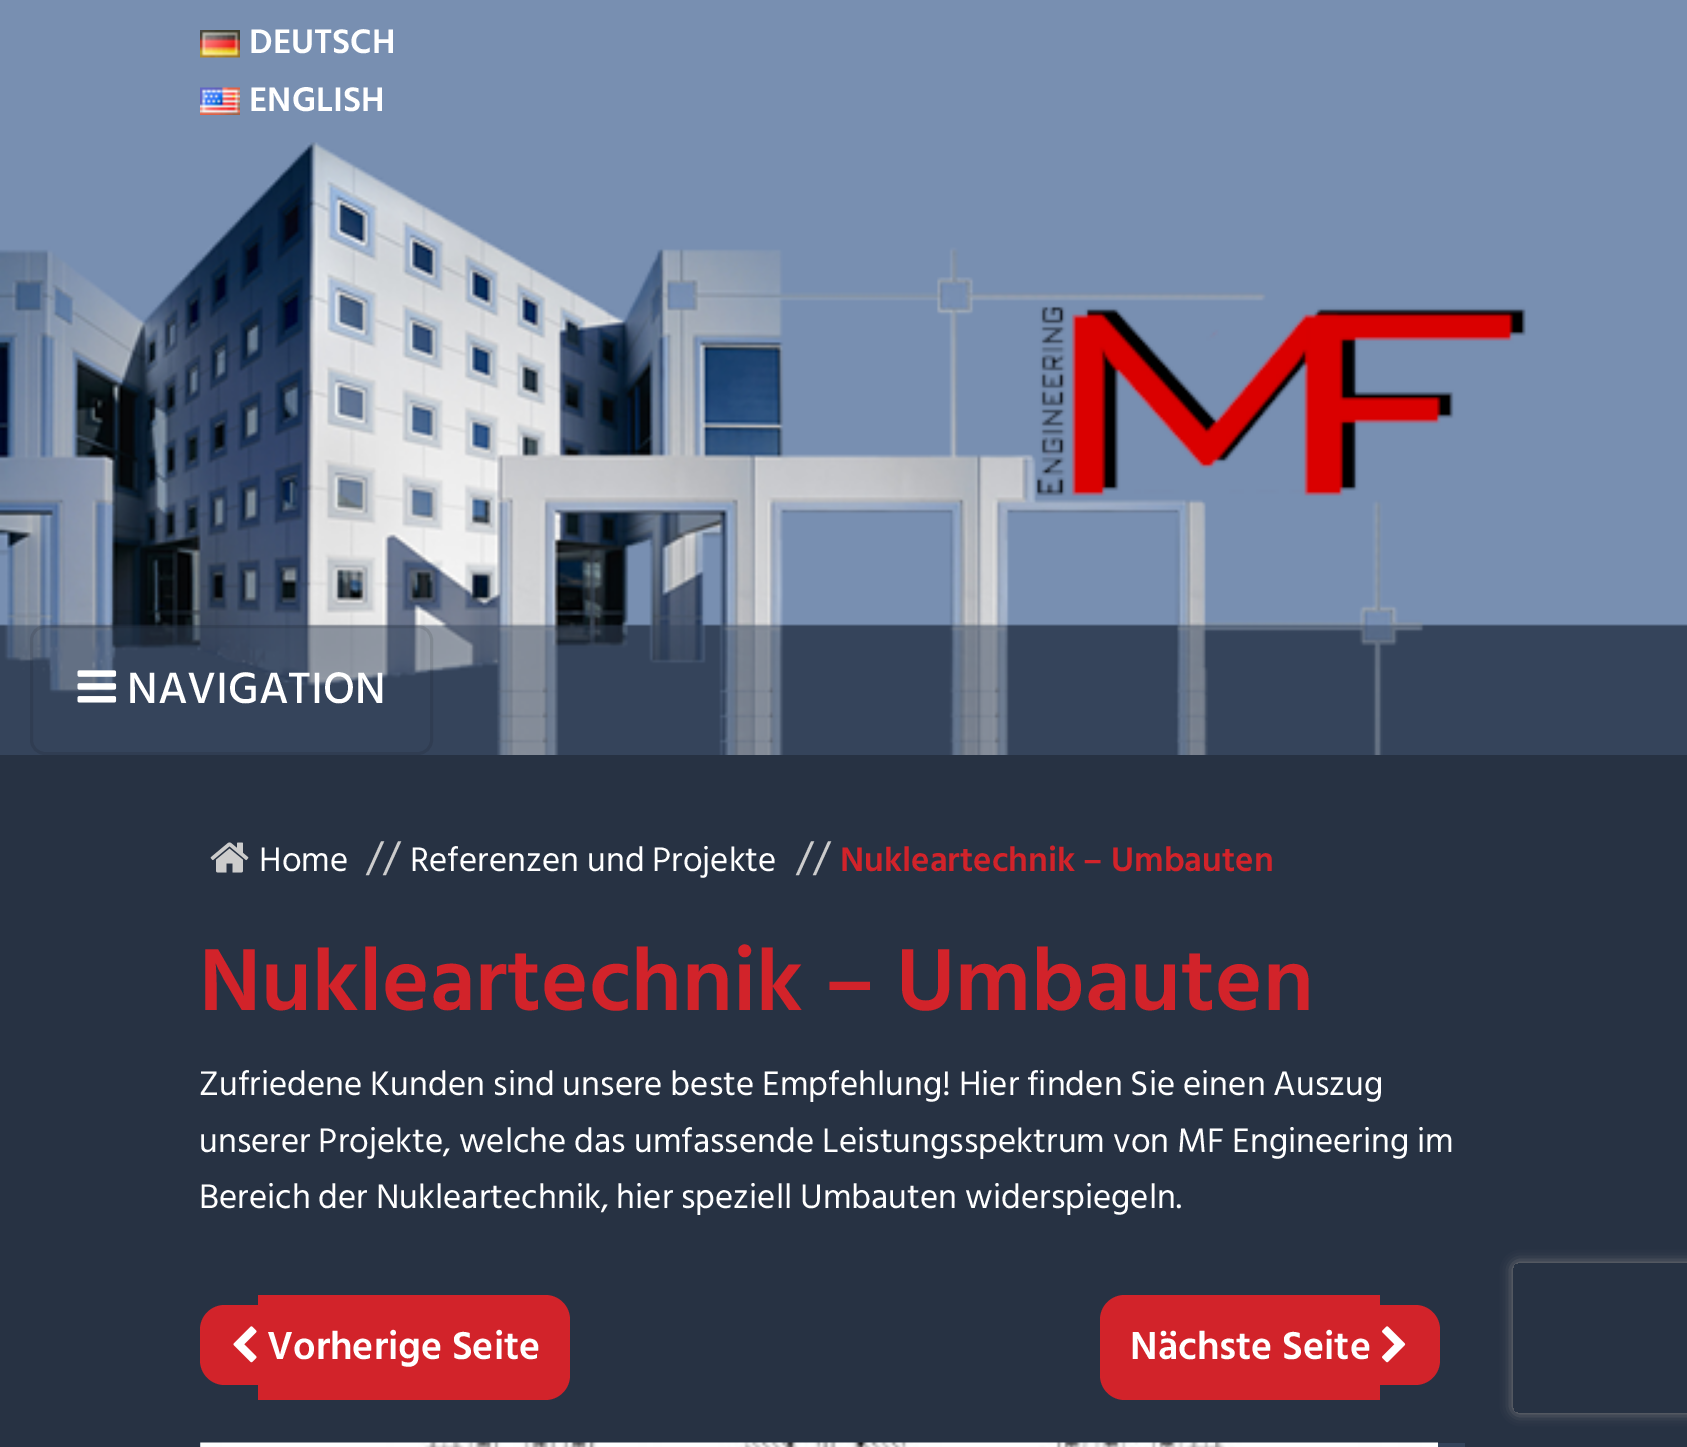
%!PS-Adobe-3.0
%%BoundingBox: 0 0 1687 1447
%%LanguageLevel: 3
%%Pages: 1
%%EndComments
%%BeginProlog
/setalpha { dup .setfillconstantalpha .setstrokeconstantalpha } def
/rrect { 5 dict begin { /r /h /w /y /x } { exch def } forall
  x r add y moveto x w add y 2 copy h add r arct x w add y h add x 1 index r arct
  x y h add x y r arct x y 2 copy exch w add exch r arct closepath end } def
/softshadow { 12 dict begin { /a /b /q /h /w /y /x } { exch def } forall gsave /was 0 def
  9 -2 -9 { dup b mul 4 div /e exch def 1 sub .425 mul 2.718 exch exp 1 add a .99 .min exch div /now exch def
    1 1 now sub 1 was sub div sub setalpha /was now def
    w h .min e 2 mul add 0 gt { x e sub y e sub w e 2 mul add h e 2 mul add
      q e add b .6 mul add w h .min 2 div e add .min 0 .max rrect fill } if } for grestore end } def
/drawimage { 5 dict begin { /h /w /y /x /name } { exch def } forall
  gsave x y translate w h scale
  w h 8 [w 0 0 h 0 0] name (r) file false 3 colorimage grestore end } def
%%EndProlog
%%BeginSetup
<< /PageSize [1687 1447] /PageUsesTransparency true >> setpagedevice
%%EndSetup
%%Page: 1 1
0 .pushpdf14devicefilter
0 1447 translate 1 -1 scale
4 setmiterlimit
0.471 0.561 0.694 setrgbcolor
0 0 1687 1447 rectfill
(images/1.raw) 200 30 40 28 drawimage
(images/2.raw) 200 87 40 28 drawimage
(images/3.raw) 0 142 1687 613 drawimage
0.1 setalpha
0 setgray
3 setlinewidth
31.5 626.5 400 127 13.5 rrect stroke
1 setalpha
(images/4.raw) 77 670 40 33 drawimage
0.153 0.196 0.263 setrgbcolor
0 755 1687 692 rectfill
(images/5.raw) 210 842 39 31 drawimage
0.824 0.137 0.165 setrgbcolor
newpath 225 1305 moveto 258 1305 lineto 258 1385 lineto 225 1385 lineto 211 1385 200 1374 200 1360 curveto 200 1330 lineto 200 1316 211 1305 225 1305 curveto closepath fill
(images/6.raw) 233 1326 24 37 drawimage
newpath 258 1295 moveto 545 1295 lineto 559 1295 570 1306 570 1320 curveto 570 1375 lineto 570 1389 559 1400 545 1400 curveto 258 1400 lineto closepath fill
newpath 1125 1295 moveto 1380 1295 lineto 1380 1400 lineto 1125 1400 lineto 1111 1400 1100 1389 1100 1375 curveto 1100 1320 lineto 1100 1306 1111 1295 1125 1295 curveto closepath fill
newpath 1380 1305 moveto 1415 1305 lineto 1429 1305 1440 1316 1440 1330 curveto 1440 1360 lineto 1440 1374 1429 1385 1415 1385 curveto 1380 1385 lineto closepath fill
(images/7.raw) 1382 1326 24 37 drawimage
0.208 0.267 0.357 setrgbcolor
200 1443 1265 4 rectfill
(images/8.raw) 200 1442 1238 5 drawimage
gsave
newpath 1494 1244 moveto 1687 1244 lineto 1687 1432 lineto 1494 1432 lineto closepath 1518 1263 moveto 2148 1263 lineto 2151 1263 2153 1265 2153 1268 curveto 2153 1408 lineto 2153 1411 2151 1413 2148 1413 curveto 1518 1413 lineto 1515 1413 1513 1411 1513 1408 curveto 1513 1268 lineto 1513 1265 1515 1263 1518 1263 curveto closepath eoclip newpath
0.502 setgray
1513 1263 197 150 5 6 1 softshadow
grestore
/HindSiliguri-SemiBold [35 0 0 -35 0 0] selectfont
1 setgray
249 53 moveto (DEUTSCH) show
249 111 moveto (ENGLISH) show
/HindSiliguri-Medium [45 0 0 -45 0 0] selectfont
127 703 moveto (NAVIGATION) show
/HindSiliguri-Regular [35 0 0 -35 0 0] selectfont
259 871 moveto (Home) show
/HindSiliguri-Regular [42 0 0 -42 0 0] selectfont
0.8 setgray
366 871 moveto (//) show
/HindSiliguri-Regular [35 0 0 -35 0 0] selectfont
1 setgray
410 871 moveto (Referenzen und Projekte) show
/HindSiliguri-Regular [42 0 0 -42 0 0] selectfont
0.8 setgray
796 871 moveto (//) show
/HindSiliguri-SemiBold [35 0 0 -35 0 0] selectfont
0.824 0.137 0.165 setrgbcolor
840 871 moveto (Nukleartechnik – Umbauten) show
/HindSiliguri-SemiBold [90 0 0 -90 0 0] selectfont
199 1010 moveto (Nukleartechnik – Umbauten) show
/HindSiliguri-Regular [35 0 0 -35 0 0] selectfont
1 setgray
199 1095 moveto (Zufriedene Kunden sind unsere beste Empfehlung! Hier finden Sie einen Auszug) show
199 1152 moveto (unserer Projekte, welche das umfassende Leistungsspektrum von MF Engineering im) show
199 1208 moveto (Bereich der Nukleartechnik, hier speziell Umbauten widerspiegeln.) show
/HindSiliguri-SemiBold [40 0 0 -40 0 0] selectfont
267 1359 moveto (Vorherige Seite) show
1130 1359 moveto (Nächste Seite) show
.poppdf14devicefilter showpage
%%EOF
